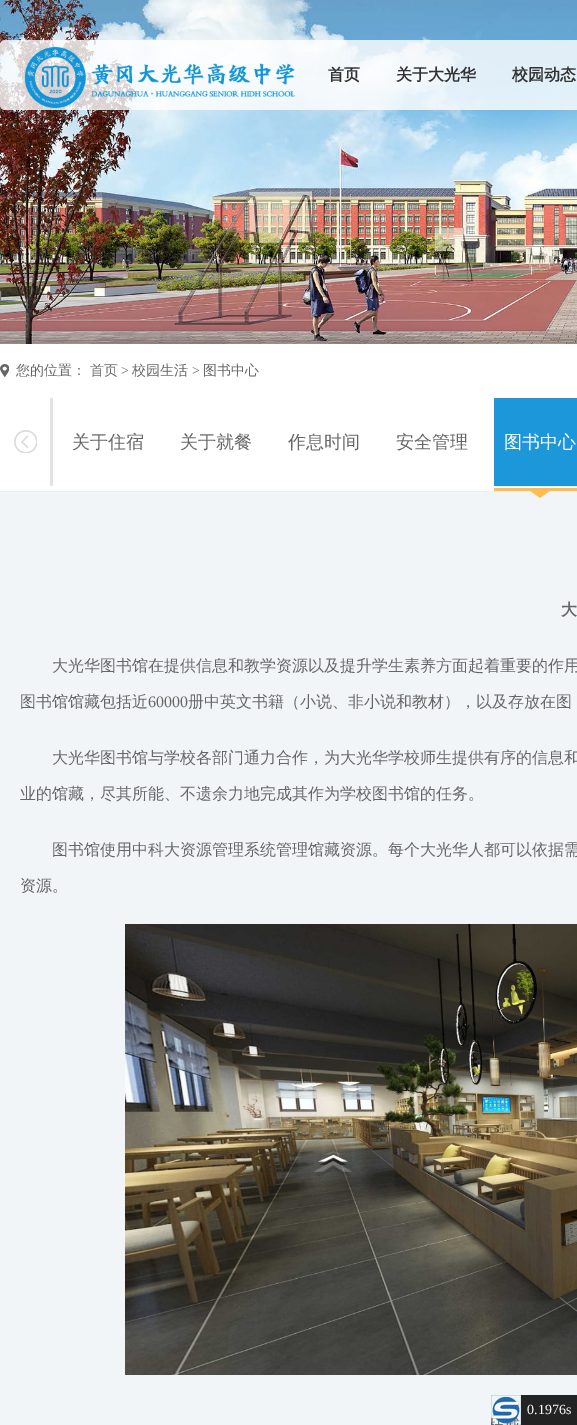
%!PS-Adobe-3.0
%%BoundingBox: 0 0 577 1425
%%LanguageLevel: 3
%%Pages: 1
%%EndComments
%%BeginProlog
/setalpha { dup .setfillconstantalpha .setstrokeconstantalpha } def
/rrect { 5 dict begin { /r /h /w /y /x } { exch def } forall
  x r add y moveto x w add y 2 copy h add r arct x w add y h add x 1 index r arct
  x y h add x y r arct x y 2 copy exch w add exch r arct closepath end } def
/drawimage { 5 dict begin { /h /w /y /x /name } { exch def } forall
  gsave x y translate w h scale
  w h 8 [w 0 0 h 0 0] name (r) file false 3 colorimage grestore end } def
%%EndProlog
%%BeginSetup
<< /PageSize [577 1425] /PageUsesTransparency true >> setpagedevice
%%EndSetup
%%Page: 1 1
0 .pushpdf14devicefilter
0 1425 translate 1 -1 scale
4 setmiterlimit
0.949 0.961 0.969 setrgbcolor
0 0 577 1425 rectfill
(images/1.raw) 0 0 577 344 drawimage
0.8 setalpha
1 setgray
0 40 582 70 5 rrect fill
1 setalpha
(images/2.raw) 24 47 271 61 drawimage
0 344 577 147 rectfill
0.933 setgray
0 491 577 1 rectfill
(images/3.raw) 0 364 9 13 drawimage
(images/4.raw) 14 430 23 23 drawimage
0.89 setgray
50 398 3 88 rectfill
0.11 0.592 0.855 setrgbcolor
494 398 83 88 rectfill
(images/5.raw) 494 488 83 10 drawimage
(images/6.raw) 125 924 452 451 drawimage
(images/7.raw) 491 1395 30 30 drawimage
0.137 setgray
521 1395 56 30 rectfill
/WenQuanYiZenHei-Bold [16 0 0 -16 0 0] selectfont
0.2 setgray
328 80 moveto (首页) show
396 80 moveto (关于大光华) show
512 80 moveto (校园动态) show
/WenQuanYiZenHei-Medium [14 0 0 -14 0 0] selectfont
0.4 setgray
16 375 moveto (您的位置：) show
90 375 moveto (首页) show
/LiberationSerif-Regular [14 0 0 -14 0 0] selectfont
121 375 moveto (>) show
/WenQuanYiZenHei-Medium [14 0 0 -14 0 0] selectfont
132 375 moveto (校园生活) show
/LiberationSerif-Regular [14 0 0 -14 0 0] selectfont
192 375 moveto (>) show
/WenQuanYiZenHei-Medium [14 0 0 -14 0 0] selectfont
203 375 moveto (图书中心) show
/WenQuanYiZenHei-Medium [18 0 0 -18 0 0] selectfont
72 448 moveto (关于住宿) show
180 448 moveto (关于就餐) show
288 448 moveto (作息时间) show
396 448 moveto (安全管理) show
1 setgray
504 448 moveto (图书中心) show
/WenQuanYiZenHei-Bold [16 0 0 -16 0 0] selectfont
0.4 setgray
561 615 moveto (大) show
/WenQuanYiZenHei-Medium [16 0 0 -16 0 0] selectfont
52 671 moveto (大光华图书馆在提供信息和教学资源以及提升学生素养方面起着重要的作用) show
20 707 moveto (图书馆馆藏包括近) show
/LiberationSerif-Regular [16 0 0 -16 0 0] selectfont
148 707 moveto (60000) show
/WenQuanYiZenHei-Medium [16 0 0 -16 0 0] selectfont
188 707 moveto (册中英文书籍（小说、非小说和教材），以及存放在图) show
52 763 moveto (大光华图书馆与学校各部门通力合作，为大光华学校师生提供有序的信息和) show
20 799 moveto (业的馆藏，尽其所能、不遗余力地完成其作为学校图书馆的任务。) show
52 855 moveto (图书馆使用中科大资源管理系统管理馆藏资源。每个大光华人都可以依据需) show
20 891 moveto (资源。) show
/LiberationSerif-Regular [14 0 0 -14 0 0] selectfont
1 setgray
527 1414 moveto (0.1976s) show
.poppdf14devicefilter showpage
%%EOF
